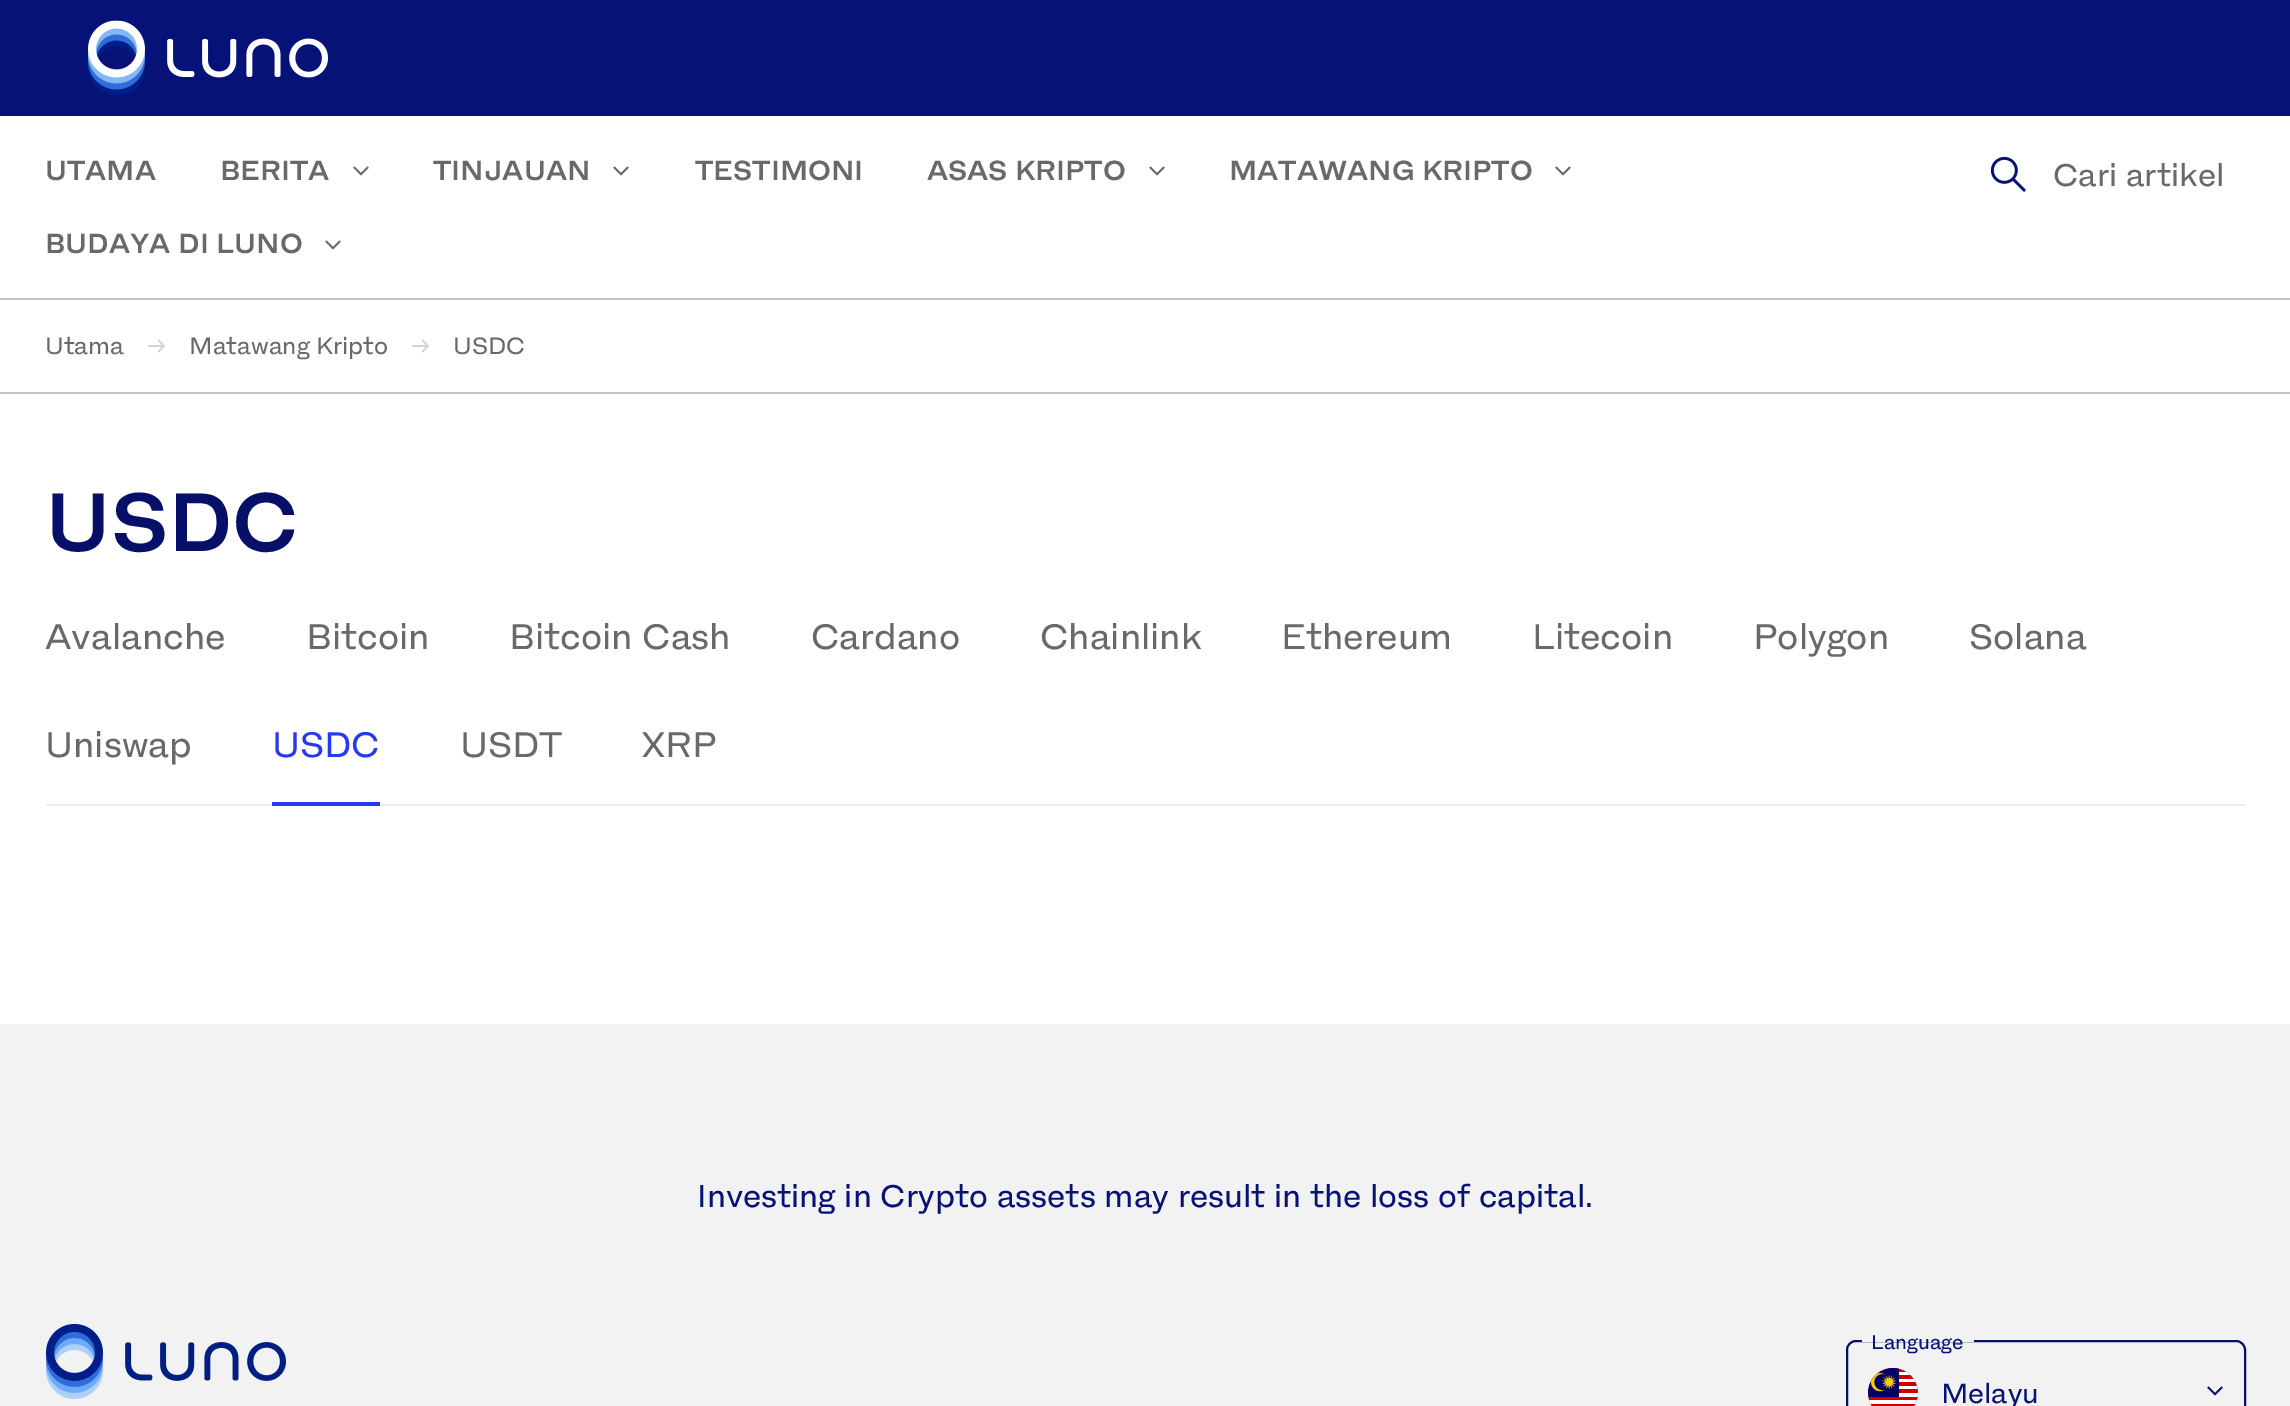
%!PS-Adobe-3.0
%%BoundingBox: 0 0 2290 1406
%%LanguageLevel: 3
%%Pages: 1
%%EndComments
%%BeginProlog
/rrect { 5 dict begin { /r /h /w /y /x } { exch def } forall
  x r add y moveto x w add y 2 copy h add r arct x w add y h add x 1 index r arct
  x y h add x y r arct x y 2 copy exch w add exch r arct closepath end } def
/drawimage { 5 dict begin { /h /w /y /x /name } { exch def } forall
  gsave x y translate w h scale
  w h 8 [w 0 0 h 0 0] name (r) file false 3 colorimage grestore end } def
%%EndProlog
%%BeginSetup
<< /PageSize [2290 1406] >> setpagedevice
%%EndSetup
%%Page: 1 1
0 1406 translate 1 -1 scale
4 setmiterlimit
1 setgray
0 0 2290 1406 rectfill
0.027 0.071 0.471 setrgbcolor
0 0 2290 116 rectfill
(images/1.raw) 88 20 240 76 drawimage
0.769 setgray
0 298 2290 2 rectfill
(images/2.raw) 353 166 16 10 drawimage
(images/2.raw) 613 166 16 10 drawimage
(images/2.raw) 1149 166 16 10 drawimage
(images/2.raw) 1555 166 16 10 drawimage
(images/2.raw) 325 240 16 10 drawimage
(images/3.raw) 1990 156 36 36 drawimage
0 392 2290 2 rectfill
(images/4.raw) 147 339 18 14 drawimage
(images/4.raw) 411 339 18 14 drawimage
0.933 setgray
46 804 2200 2 rectfill
0.149 0.224 0.949 setrgbcolor
272 802 108 4 rectfill
0.949 setgray
0 1024 2290 382 rectfill
(images/5.raw) 46 1324 240 75 drawimage
0.024 0.063 0.408 setrgbcolor
2 setlinewidth
1847 1341 398 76 9 rrect stroke
0.949 setgray
1862 1340 112 2 rectfill
(images/6.raw) 1868 1368 50 38 drawimage
(images/7.raw) 2207 1386 16 10 drawimage
/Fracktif-SemiBold [28 0 0 -28 0 0] selectfont
0.412 setgray
45 180 moveto (UTAMA) show
220 180 moveto (BERITA) show
433 180 moveto (TINJAUAN) show
695 180 moveto (TESTIMONI) show
927 180 moveto (ASAS KRIPTO) show
1229 180 moveto (MATAWANG KRIPTO) show
45 253 moveto (BUDAYA DI LUNO) show
/Fracktif-Regular [32 0 0 -32 0 0] selectfont
2053 186 moveto (Cari artikel) show
/Fracktif-Regular [24 0 0 -24 0 0] selectfont
45 354 moveto (Utama) show
189 354 moveto (Matawang Kripto) show
453 354 moveto (USDC) show
/Fracktif-SemiBold [84 0 0 -84 0 0] selectfont
0.024 0.063 0.408 setrgbcolor
45 551 moveto (USDC) show
/Fracktif-Regular [36 0 0 -36 0 0] selectfont
0.412 setgray
45 649 moveto (Avalanche) show
306 649 moveto (Bitcoin) show
509 649 moveto (Bitcoin Cash) show
811 649 moveto (Cardano) show
1040 649 moveto (Chainlink) show
1281 649 moveto (Ethereum) show
1532 649 moveto (Litecoin) show
1753 649 moveto (Polygon) show
1969 649 moveto (Solana) show
45 757 moveto (Uniswap) show
0.149 0.224 0.949 setrgbcolor
272 757 moveto (USDC) show
0.412 setgray
460 757 moveto (USDT) show
642 757 moveto (XRP) show
/Fracktif-Regular [32 0 0 -32 0 0] selectfont
0.027 0.071 0.471 setrgbcolor
697 1207 moveto (Investing in Crypto assets may result in the loss of capital.) show
/Fracktif-Regular [20 0 0 -20 0 0] selectfont
1871 1349 moveto (Language) show
/Fracktif-Regular [28 0 0 -28 0 0] selectfont
1941 1403 moveto (Melayu) show
showpage
%%EOF
